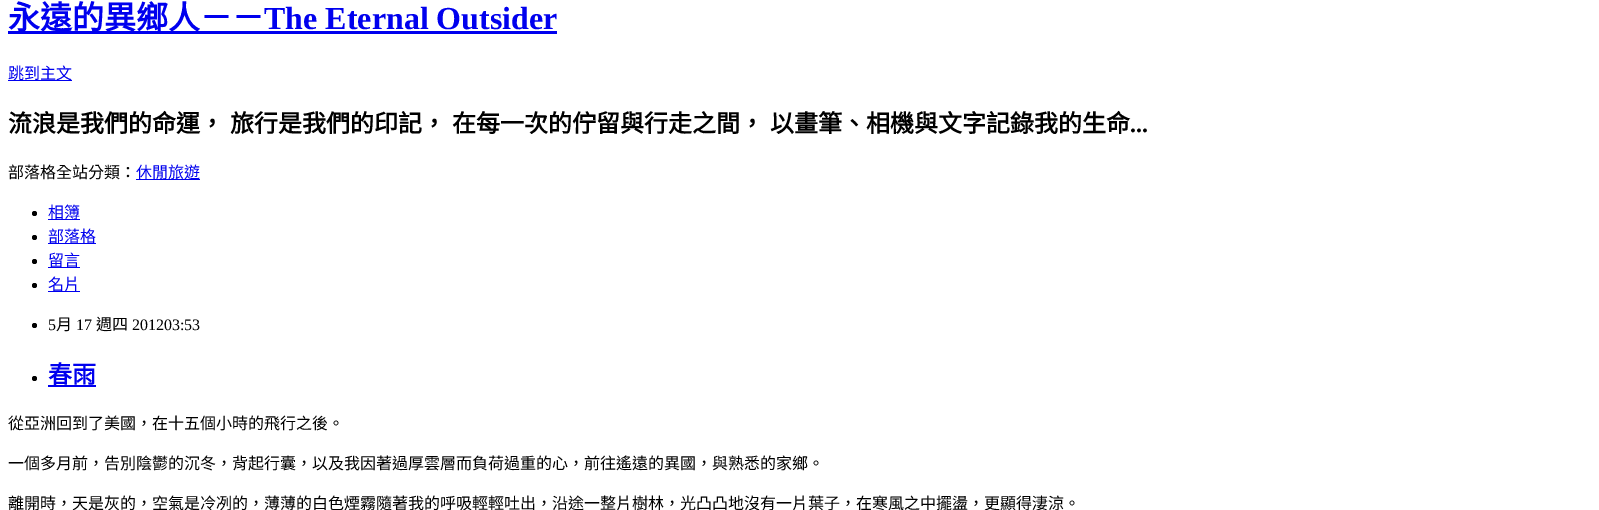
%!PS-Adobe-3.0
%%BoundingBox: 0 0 1599 510
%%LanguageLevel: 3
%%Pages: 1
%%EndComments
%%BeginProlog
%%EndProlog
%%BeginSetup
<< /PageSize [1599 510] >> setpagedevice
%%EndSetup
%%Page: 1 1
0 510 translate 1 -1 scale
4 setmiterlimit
1 setgray
0 0 1599 510 rectfill
0 0 0.933 setrgbcolor
8 31 549 3 rectfill
8 80 64 1 rectfill
136 179 64 1 rectfill
0 setgray
newpath 34.5 213.5 2.5 0 360 arc closepath fill
0 0 0.933 setrgbcolor
48 219 32 1 rectfill
0 setgray
newpath 34.5 237.5 2.5 0 360 arc closepath fill
0 0 0.933 setrgbcolor
48 243 48 1 rectfill
0 setgray
newpath 34.5 261.5 2.5 0 360 arc closepath fill
0 0 0.933 setrgbcolor
48 267 32 1 rectfill
0 setgray
newpath 34.5 285.5 2.5 0 360 arc closepath fill
0 0 0.933 setrgbcolor
48 291 32 1 rectfill
0 setgray
newpath 34.5 325.5 2.5 0 360 arc closepath fill
newpath 34.5 378.5 2.5 0 360 arc closepath fill
0 0 0.933 setrgbcolor
48 385 48 2 rectfill
/NotoSansCJKTC-Bold [32 0 0 -32 0 0] selectfont
8 29 moveto (永遠的異鄉人－－) show
/LiberationSerif-Bold [32 0 0 -32 0 0] selectfont
264 29 moveto (The Eternal Outsider) show
/NotoSansCJKTC-Regular [16 0 0 -16 0 0] selectfont
8 79 moveto (跳到主文) show
/NotoSansCJKTC-Bold [24 0 0 -24 0 0] selectfont
0 setgray
8 132 moveto 0.5 0 32 (流浪是我們的命運， 旅行是我們的印記， 在每一次的佇留與行走之間， 以畫筆、相機與文字記錄我的生命) widthshow
/LiberationSerif-Bold [24 0 0 -24 0 0] selectfont
1130 132 moveto (...) show
/NotoSansCJKTC-Regular [16 0 0 -16 0 0] selectfont
8 178 moveto (部落格全站分類：) show
0 0 0.933 setrgbcolor
136 178 moveto (休閒旅遊) show
48 218 moveto (相簿) show
48 242 moveto (部落格) show
48 266 moveto (留言) show
48 290 moveto (名片) show
/LiberationSerif-Regular [16 0 0 -16 0 0] selectfont
0 setgray
48 330 moveto (5) show
/NotoSansCJKTC-Regular [16 0 0 -16 0 0] selectfont
56 330 moveto (月) show
/LiberationSerif-Regular [16 0 0 -16 0 0] selectfont
76 330 moveto (17) show
/NotoSansCJKTC-Regular [16 0 0 -16 0 0] selectfont
96 330 moveto (週四) show
/LiberationSerif-Regular [16 0 0 -16 0 0] selectfont
132 330 moveto (201203:53) show
/NotoSansCJKTC-Bold [24 0 0 -24 0 0] selectfont
0 0 0.933 setrgbcolor
48 383 moveto (春雨) show
/NotoSansCJKTC-Regular [16 0 0 -16 0 0] selectfont
0 setgray
8 429 moveto (從亞洲回到了美國，在十五個小時的飛行之後。) show
8 469 moveto (一個多月前，告別陰鬱的沉冬，背起行囊，以及我因著過厚雲層而負荷過重的心，前往遙遠的異國，與熟悉的家鄉。) show
8 509 moveto (離開時，天是灰的，空氣是冷冽的，薄薄的白色煙霧隨著我的呼吸輕輕吐出，沿途一整片樹林，光凸凸地沒有一片葉子，在寒風之中擺盪，更顯得淒涼。) show
showpage
%%EOF
